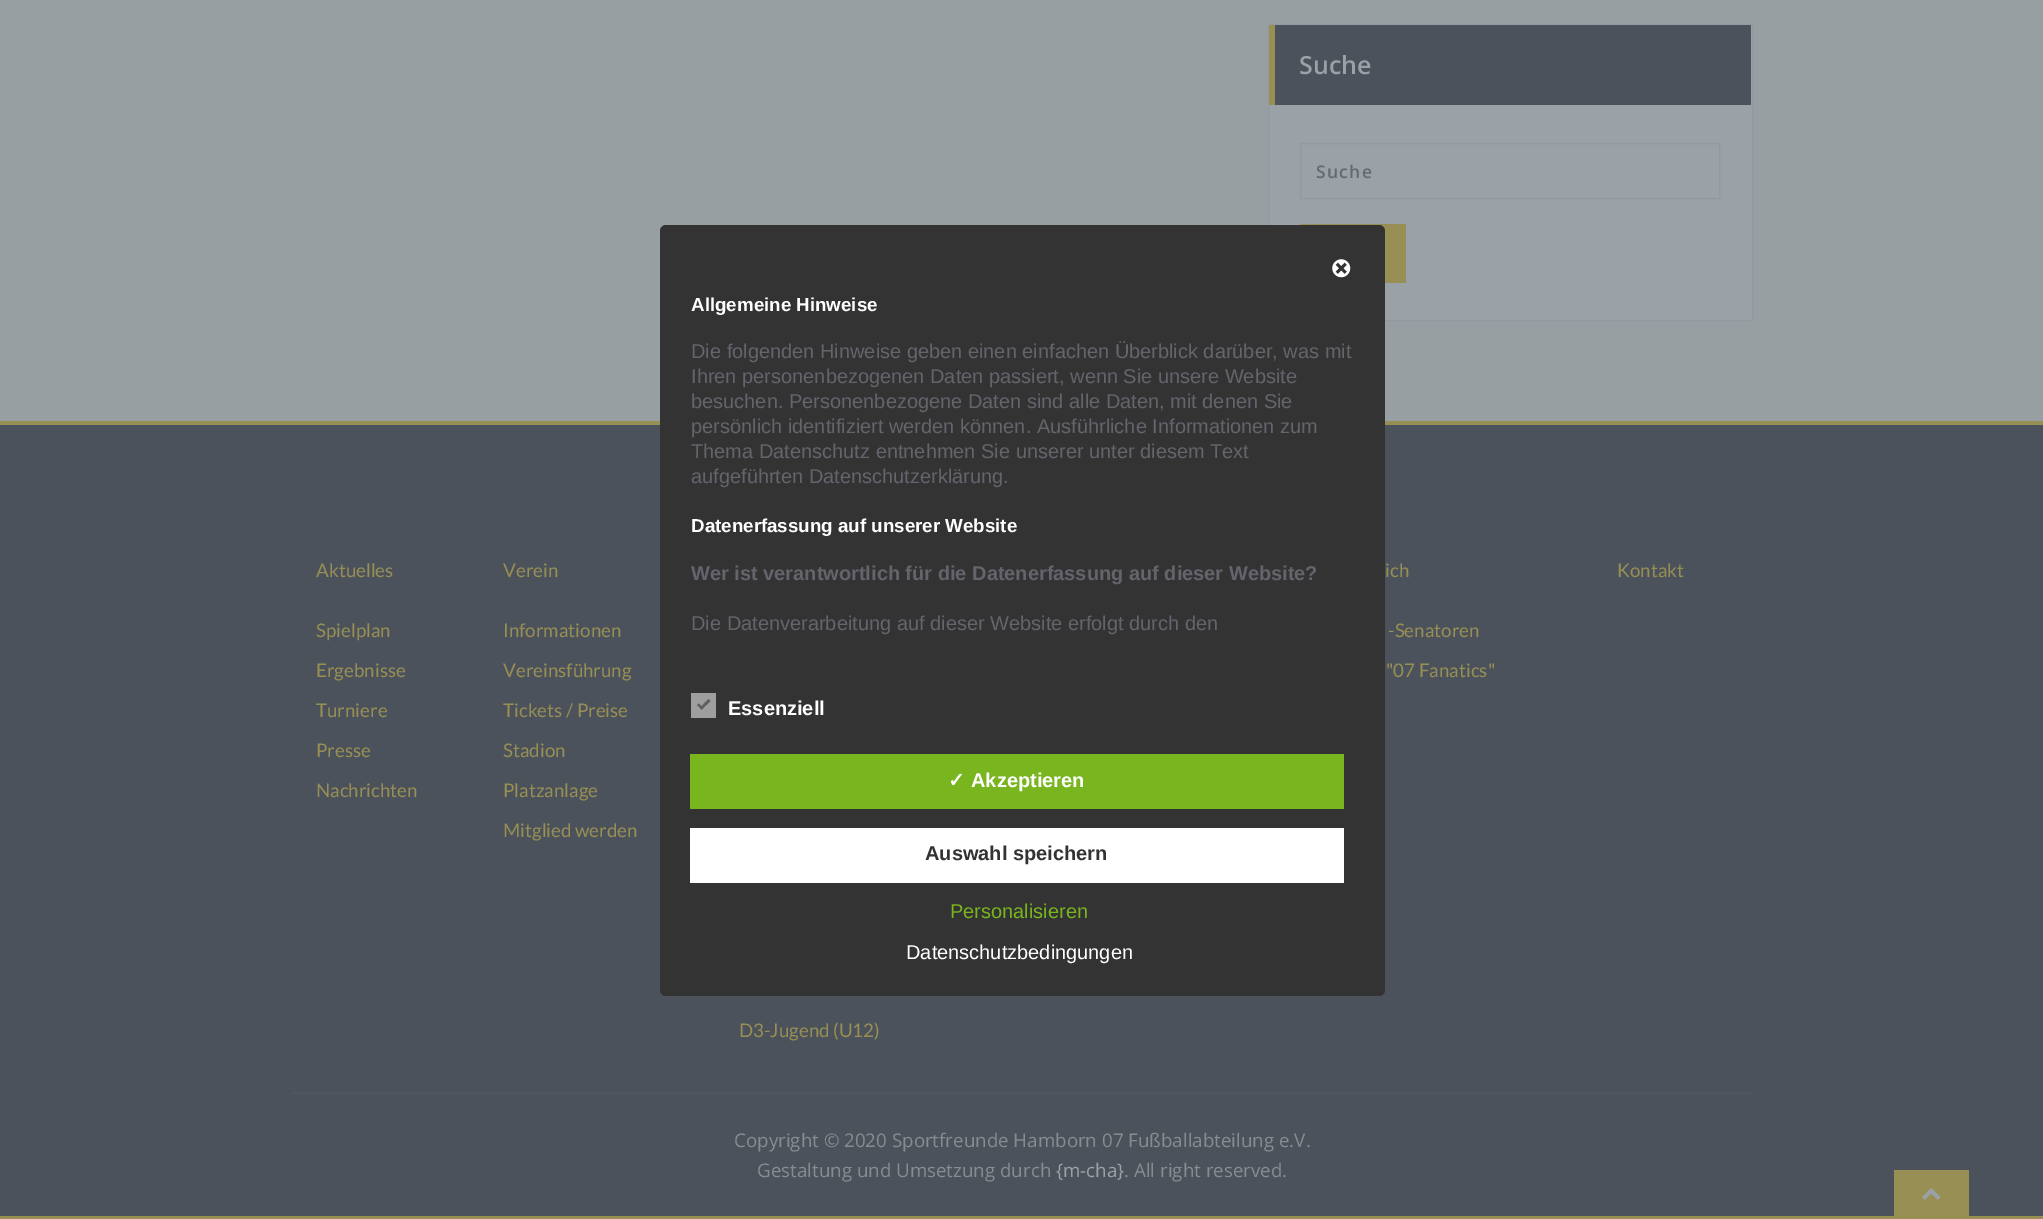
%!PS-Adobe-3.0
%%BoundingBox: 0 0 2043 1219
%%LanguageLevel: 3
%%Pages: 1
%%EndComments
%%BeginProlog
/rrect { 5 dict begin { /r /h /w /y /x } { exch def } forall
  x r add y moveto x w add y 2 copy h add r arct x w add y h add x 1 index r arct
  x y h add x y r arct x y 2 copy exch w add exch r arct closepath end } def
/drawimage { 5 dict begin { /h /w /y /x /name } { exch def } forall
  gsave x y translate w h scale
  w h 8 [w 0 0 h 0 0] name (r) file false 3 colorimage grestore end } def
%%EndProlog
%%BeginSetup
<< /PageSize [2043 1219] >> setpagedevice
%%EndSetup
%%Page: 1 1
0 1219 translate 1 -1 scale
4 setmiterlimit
0.592 0.624 0.639 setrgbcolor
0 0 2043 1219 rectfill
0.608 0.635 0.655 setrgbcolor
newpath 1268.5 24.5 moveto 1752.5 24.5 lineto 1752.5 320.5 lineto 1268.5 320.5 lineto closepath gsave fill grestore
0.576 0.604 0.624 setrgbcolor
stroke
0.294 0.322 0.357 setrgbcolor
1275 25 476 80 rectfill
0.596 0.561 0.333 setrgbcolor
1269 25 6 80 rectfill
0.576 0.604 0.624 setrgbcolor
1300.5 143.5 419 55 rectstroke
0.596 0.561 0.333 setrgbcolor
1300 224 106 59 rectfill
0.294 0.322 0.357 setrgbcolor
0 425 2043 791 rectfill
0.596 0.561 0.333 setrgbcolor
0 421 2043 4 rectfill
0 1216 2043 3 rectfill
0.337 0.365 0.404 setrgbcolor
1.2 setlinewidth
[1.25 1.25] 0 setdash
newpath 292.5 1093 moveto 1752.5 1093 lineto stroke
0.596 0.561 0.333 setrgbcolor
1894 1170 75 46 rectfill
(images/1.raw) 1922 1188 19 12 drawimage
0.2 setgray
660 225 725 771 6 rrect fill
(images/2.raw) 1332 259 19 19 drawimage
0.62 setgray
691 693 25 25 rectfill
0.369 setgray
newpath 708.5 699 moveto 710.5 701 lineto 701.5 709.5 lineto 700 708 lineto closepath fill
newpath 699 703.5 moveto 703.5 708 lineto 701.5 709.5 lineto 697 705 lineto closepath fill
0.475 0.71 0.122 setrgbcolor
690 754 654 55 rectfill
1 setgray
690 828 654 55 rectfill
/OpenSans-SemiBold [25 0 0 -25 0 0] selectfont
0.608 0.635 0.655 setrgbcolor
1299 74 moveto (Suche) show
/OpenSans-SemiBold [17.5 0 0 -17.5 0 0] selectfont
0.388 0.416 0.447 setrgbcolor
1316 178 moveto 1.25 0 (Suche) ashow
/Lato-Regular [18.75 0 0 -18.75 0 0] selectfont
0.596 0.561 0.333 setrgbcolor
316 577 moveto (Aktuelles) show
316 637 moveto (Spielplan) show
316 677 moveto (Ergebnisse) show
316 717 moveto (Turniere) show
316 757 moveto (Presse) show
316 797 moveto (Nachrichten) show
503 577 moveto (Verein) show
503 637 moveto (Informationen) show
503 677 moveto (Vereinsführung) show
503 717 moveto (Tickets / Preise) show
503 757 moveto (Stadion) show
503 797 moveto (Platzanlage) show
503 837 moveto (Mitglied werden) show
1385 577 moveto (ich) show
1388 637 moveto (-Senatoren) show
1386 677 moveto ("07 Fanatics") show
1617 577 moveto (Kontakt) show
739 1037 moveto (D3-Jugend \(U12\)) show
/OpenSans-Regular [18.75 0 0 -18.75 0 0] selectfont
0.522 0.553 0.569 setrgbcolor
734 1147 moveto (Copyright © 2020 Sportfreunde Hamborn 07 Fußballabteilung e.V.) show
757 1177 moveto (Gestaltung und Umsetzung durch) show
0.608 0.635 0.655 setrgbcolor
1056 1177 moveto ({m-cha}) show
0.522 0.553 0.569 setrgbcolor
1124 1177 moveto (. All right reserved.) show
/LiberationSans-Bold [18.75 0 0 -18.75 0 0] selectfont
1 setgray
691 311 moveto (Allgemeine Hinweise) show
/LiberationSans-Regular [20 0 0 -20 0 0] selectfont
0.392 0.392 0.427 setrgbcolor
691 358 moveto (Die folgenden Hinweise geben einen einfachen Überblick darüber, was mit) show
691 383 moveto (Ihren personenbezogenen Daten passiert, wenn Sie unsere Website) show
691 408 moveto (besuchen. Personenbezogene Daten sind alle Daten, mit denen Sie) show
691 433 moveto (persönlich identifiziert werden können. Ausführliche Informationen zum) show
691 458 moveto (Thema Datenschutz entnehmen Sie unserer unter diesem Text) show
691 483 moveto (aufgeführten Datenschutzerklärung.) show
/LiberationSans-Bold [18.75 0 0 -18.75 0 0] selectfont
1 setgray
691 532 moveto (Datenerfassung auf unserer Website) show
/LiberationSans-Bold [20 0 0 -20 0 0] selectfont
0.392 0.392 0.427 setrgbcolor
691 580 moveto (Wer ist verantwortlich für die Datenerfassung auf dieser Website?) show
/LiberationSans-Regular [20 0 0 -20 0 0] selectfont
691 630 moveto (Die Datenverarbeitung auf dieser Website erfolgt durch den) show
/LiberationSans-Bold [20 0 0 -20 0 0] selectfont
1 setgray
728 715 moveto (Essenziell) show
/DejaVuSans-Bold [20 0 0 -20 0 0] selectfont
948 787 moveto (✓) show
/LiberationSans-Bold [20 0 0 -20 0 0] selectfont
971 787 moveto (Akzeptieren) show
0.2 setgray
925 860 moveto (Auswahl speichern) show
/LiberationSans-Regular [20 0 0 -20 0 0] selectfont
0.475 0.71 0.122 setrgbcolor
950 918 moveto (Personalisieren) show
1 setgray
906 959 moveto (Datenschutzbedingungen) show
showpage
%%EOF
